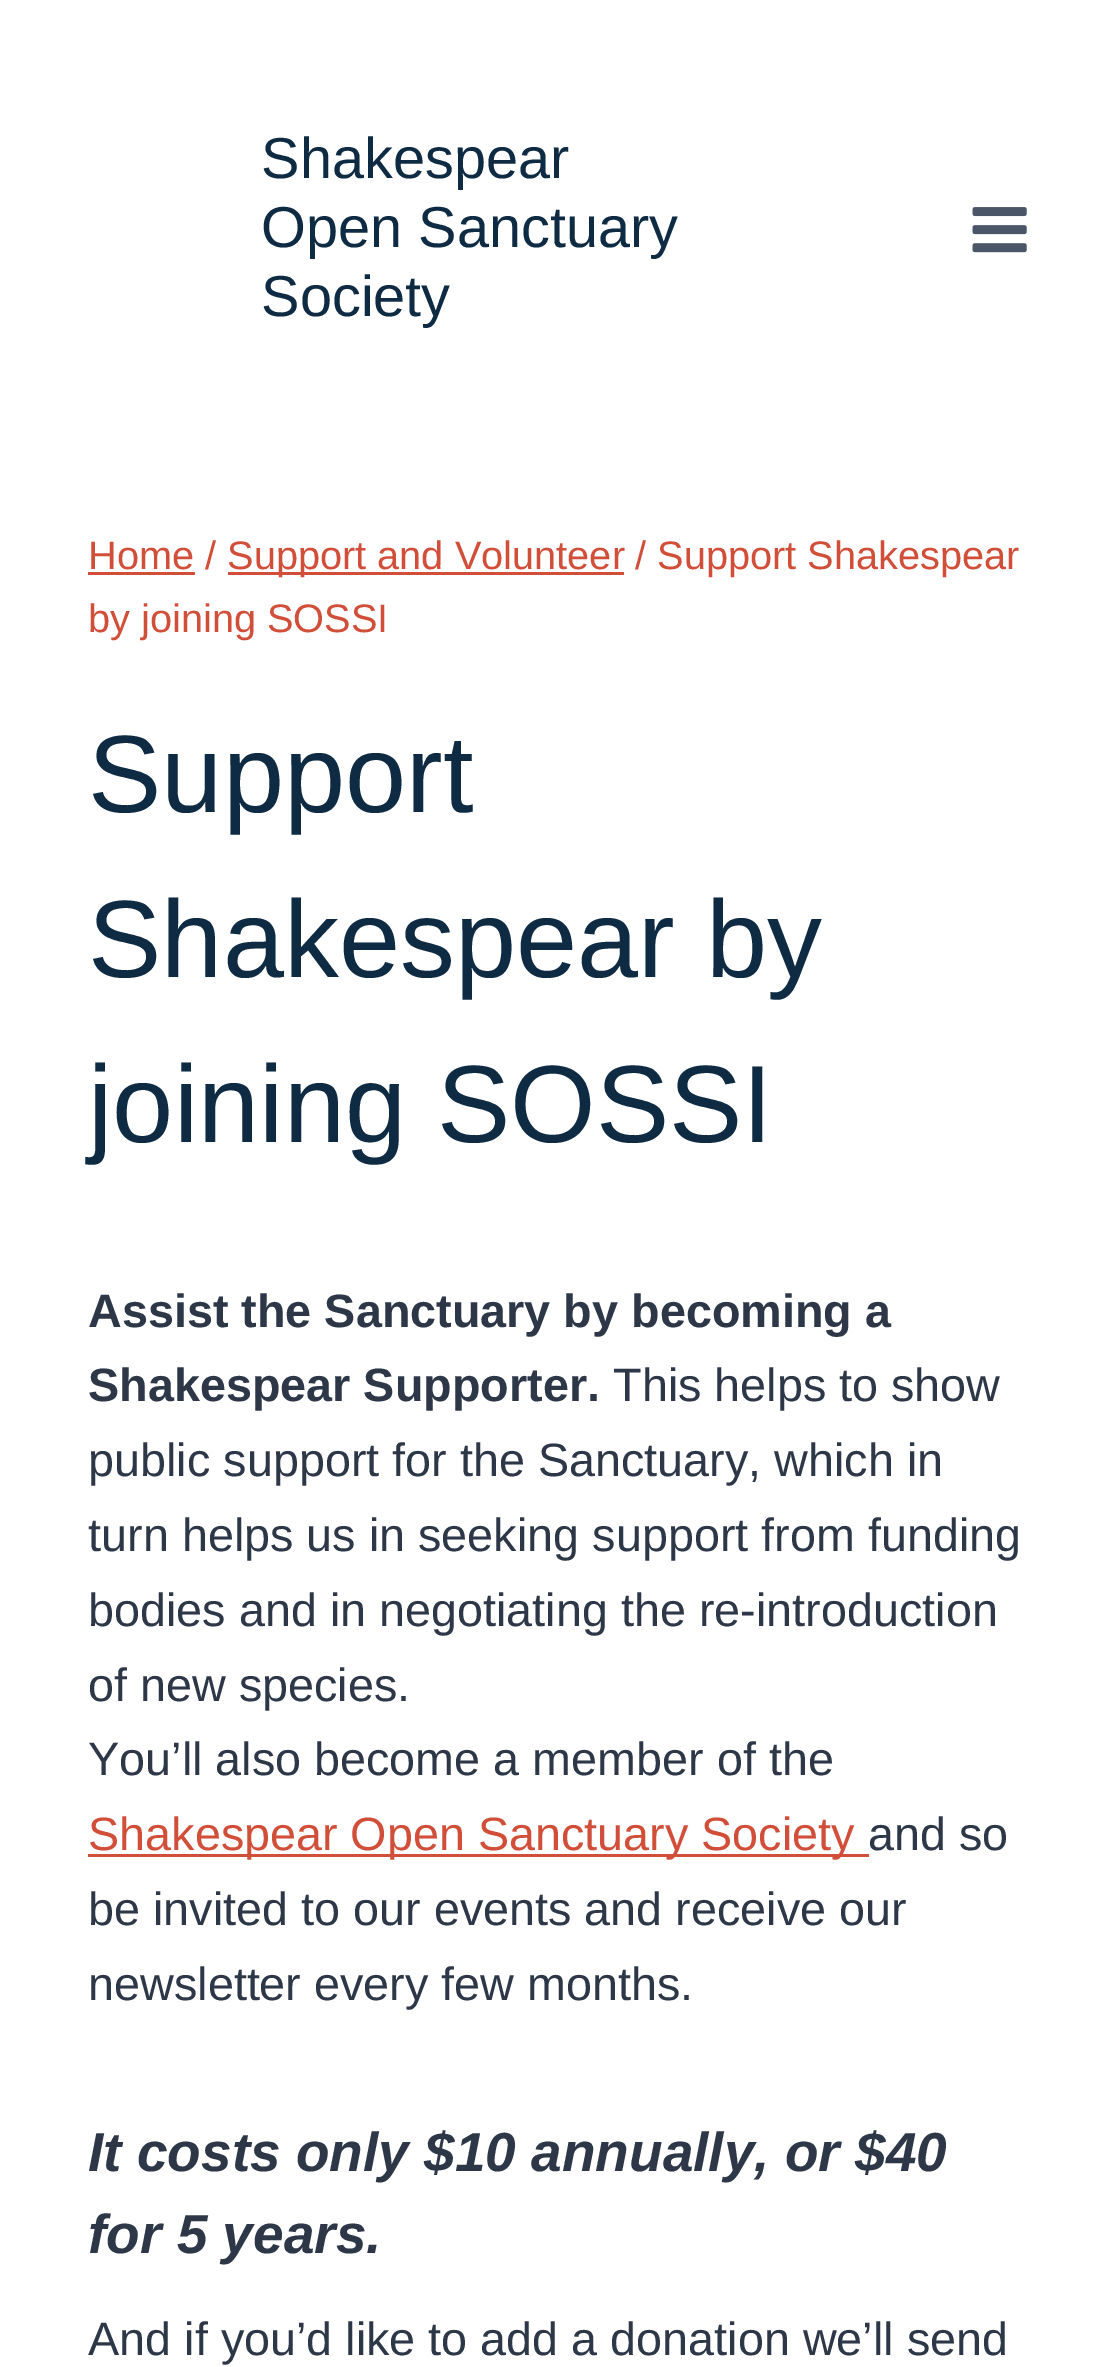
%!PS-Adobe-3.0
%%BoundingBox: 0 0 1117 2367
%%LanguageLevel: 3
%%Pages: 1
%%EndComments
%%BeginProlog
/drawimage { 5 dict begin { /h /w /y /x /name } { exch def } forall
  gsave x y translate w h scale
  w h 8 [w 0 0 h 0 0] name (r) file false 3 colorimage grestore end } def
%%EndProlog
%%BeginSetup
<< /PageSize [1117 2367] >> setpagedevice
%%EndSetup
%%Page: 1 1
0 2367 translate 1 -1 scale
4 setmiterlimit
1 setgray
0 0 1117 2367 rectfill
(images/1.raw) 972 207 55 46 drawimage
0.82 0.306 0.224 setrgbcolor
88 572 107 3 rectfill
228 572 396 3 rectfill
88 1854 781 3 rectfill
/LiberationSans-Regular [57.75 0 0 -57.75 0 0] selectfont
0.059 0.165 0.263 setrgbcolor
261 178 moveto (Shakespear) show
261 247 moveto (Open Sanctuary) show
261 316 moveto (Society) show
/LiberationSans-Regular [39.75 0 0 -39.75 0 0] selectfont
0.82 0.306 0.224 setrgbcolor
88 569 moveto (Home /) show
227 569 moveto (Support and Volunteer) show
635 569 moveto (/ Support Shakespear) show
88 632 moveto (by joining SOSSI) show
/LiberationSans-Regular [110 0 0 -110 0 0] selectfont
0.059 0.165 0.263 setrgbcolor
88 812 moveto (Support) show
88 977 moveto (Shakespear by) show
88 1142 moveto (joining SOSSI) show
/LiberationSans-Bold [46.75 0 0 -46.75 0 0] selectfont
0.176 0.216 0.282 setrgbcolor
88 1327 moveto (Assist the Sanctuary by becoming a) show
88 1401 moveto (Shakespear Supporter.) show
/LiberationSans-Regular [46.75 0 0 -46.75 0 0] selectfont
613 1401 moveto (This helps to show) show
88 1476 moveto (public support for the Sanctuary, which in) show
88 1551 moveto (turn helps us in seeking support from funding) show
88 1626 moveto (bodies and in negotiating the re-introduction) show
88 1701 moveto (of new species.) show
88 1775 moveto (You’ll also become a member of the) show
0.82 0.306 0.224 setrgbcolor
88 1850 moveto (Shakespear Open Sanctuary Society) show
0.176 0.216 0.282 setrgbcolor
868 1850 moveto (and so) show
88 1925 moveto (be invited to our events and receive our) show
88 2000 moveto (newsletter every few months.) show
/LiberationSans-BoldItalic [55 0 0 -55 0 0] selectfont
88 2171 moveto (It costs only $10 annually, or $40) show
88 2253 moveto (for 5 years.) show
/LiberationSans-Regular [46.75 0 0 -46.75 0 0] selectfont
88 2355 moveto (And if you’d like to add a donation we’ll send) show
showpage
%%EOF
